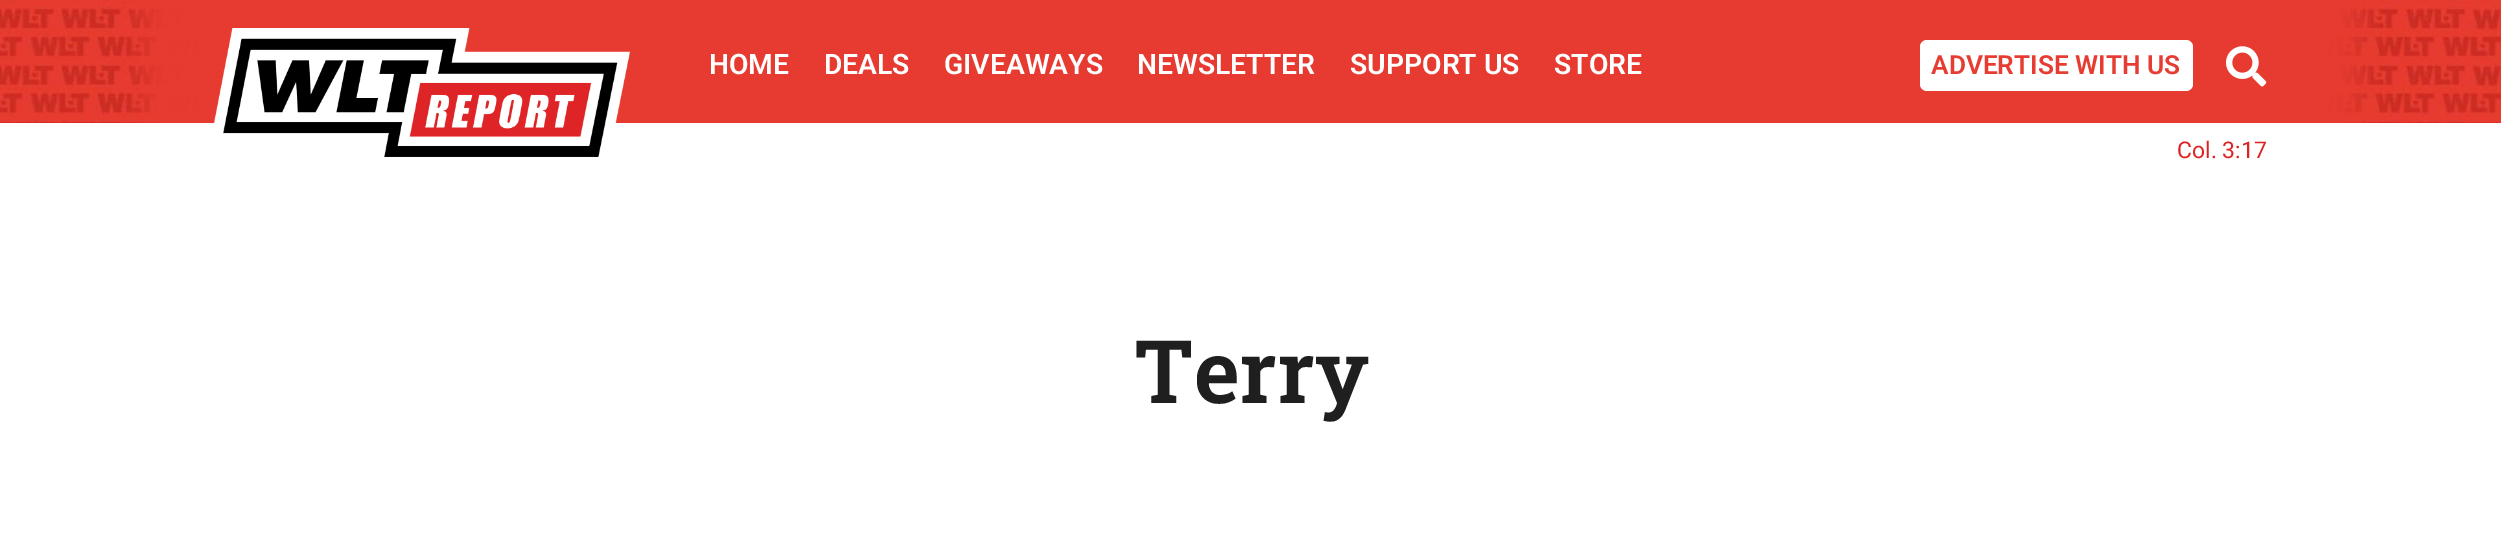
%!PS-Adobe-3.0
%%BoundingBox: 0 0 2501 560
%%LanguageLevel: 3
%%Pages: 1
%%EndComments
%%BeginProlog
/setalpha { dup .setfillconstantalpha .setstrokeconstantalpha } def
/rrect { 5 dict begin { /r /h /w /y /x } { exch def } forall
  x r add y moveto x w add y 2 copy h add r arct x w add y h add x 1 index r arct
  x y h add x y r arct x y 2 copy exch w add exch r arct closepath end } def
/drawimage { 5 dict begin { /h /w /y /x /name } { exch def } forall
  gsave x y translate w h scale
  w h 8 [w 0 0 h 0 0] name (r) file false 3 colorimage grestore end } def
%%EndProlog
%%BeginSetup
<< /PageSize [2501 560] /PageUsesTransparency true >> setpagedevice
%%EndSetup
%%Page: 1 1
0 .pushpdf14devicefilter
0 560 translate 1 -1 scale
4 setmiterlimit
1 setgray
0 0 2501 560 rectfill
0.871 0.141 0.149 setrgbcolor
0 122 2501 1 rectfill
(images/1.raw) 0 0 2501 123 drawimage
0.1 setalpha
0.906 0.231 0.192 setrgbcolor
newpath 280 122 moveto 280 123 lineto 2380 123 lineto 2380 0 lineto 2301 0 lineto 2301 122 lineto closepath fill
0.2 setalpha
newpath 271 122 moveto 271 123 lineto 2371 123 lineto 2371 0 lineto 2301 0 lineto 2301 122 lineto closepath fill
0.3 setalpha
newpath 263 122 moveto 263 123 lineto 2363 123 lineto 2363 0 lineto 2301 0 lineto 2301 122 lineto closepath fill
0.4 setalpha
newpath 254 122 moveto 254 123 lineto 2354 123 lineto 2354 0 lineto 2301 0 lineto 2301 122 lineto closepath fill
0.5 setalpha
newpath 245 122 moveto 245 123 lineto 2345 123 lineto 2345 0 lineto 2301 0 lineto 2301 122 lineto closepath fill
0.6 setalpha
newpath 236 122 moveto 236 123 lineto 2336 123 lineto 2336 0 lineto 2301 0 lineto 2301 122 lineto closepath fill
0.7 setalpha
newpath 228 122 moveto 228 123 lineto 2328 123 lineto 2328 0 lineto 2301 0 lineto 2301 122 lineto closepath fill
0.8 setalpha
newpath 219 122 moveto 219 123 lineto 2319 123 lineto 2319 0 lineto 2301 0 lineto 2301 122 lineto closepath fill
0.9 setalpha
newpath 210 122 moveto 210 123 lineto 2310 123 lineto 2310 0 lineto 2301 0 lineto 2301 122 lineto closepath fill
0.1 setalpha
newpath 123 0 moveto 123 123 lineto 2223 123 lineto 2223 122 lineto 201 122 lineto 201 0 lineto closepath fill
0.2 setalpha
newpath 131 0 moveto 131 123 lineto 2231 123 lineto 2231 122 lineto 201 122 lineto 201 0 lineto closepath fill
0.3 setalpha
newpath 140 0 moveto 140 123 lineto 2240 123 lineto 2240 122 lineto 201 122 lineto 201 0 lineto closepath fill
0.4 setalpha
newpath 149 0 moveto 149 123 lineto 2249 123 lineto 2249 122 lineto 201 122 lineto 201 0 lineto closepath fill
0.5 setalpha
newpath 158 0 moveto 158 123 lineto 2258 123 lineto 2258 122 lineto 201 122 lineto 201 0 lineto closepath fill
0.6 setalpha
newpath 166 0 moveto 166 123 lineto 2266 123 lineto 2266 122 lineto 201 122 lineto 201 0 lineto closepath fill
1 setalpha
201 0 2100 122 rectfill
(images/2.raw) 214 28 416 129 drawimage
1 setgray
1920 40 273 51 7 rrect fill
(images/3.raw) 2226 46 41 41 drawimage
/Roboto-SemiBold [28.25 0 0 -28.25 0 0] selectfont
709 74 moveto (HOME) show
824 74 moveto (DEALS) show
944 74 moveto (GIVEAWAYS) show
1137 74 moveto (NEWSLETTER) show
1350 74 moveto (SUPPORT US) show
1554 74 moveto (STORE) show
/Roboto-SemiBold [26.25 0 0 -26.25 0 0] selectfont
0.906 0.235 0.192 setrgbcolor
1931 74 moveto (ADVERTISE WITH US) show
/Roboto-Regular [23 0 0 -23 0 0] selectfont
0.871 0.133 0.141 setrgbcolor
2177 158 moveto (Col. 3:17) show
/RobotoSlab-SemiBold [87.5 0 0 -87.5 0 0] selectfont
0.122 setgray
1134 403 moveto (Terry) show
.poppdf14devicefilter showpage
%%EOF
